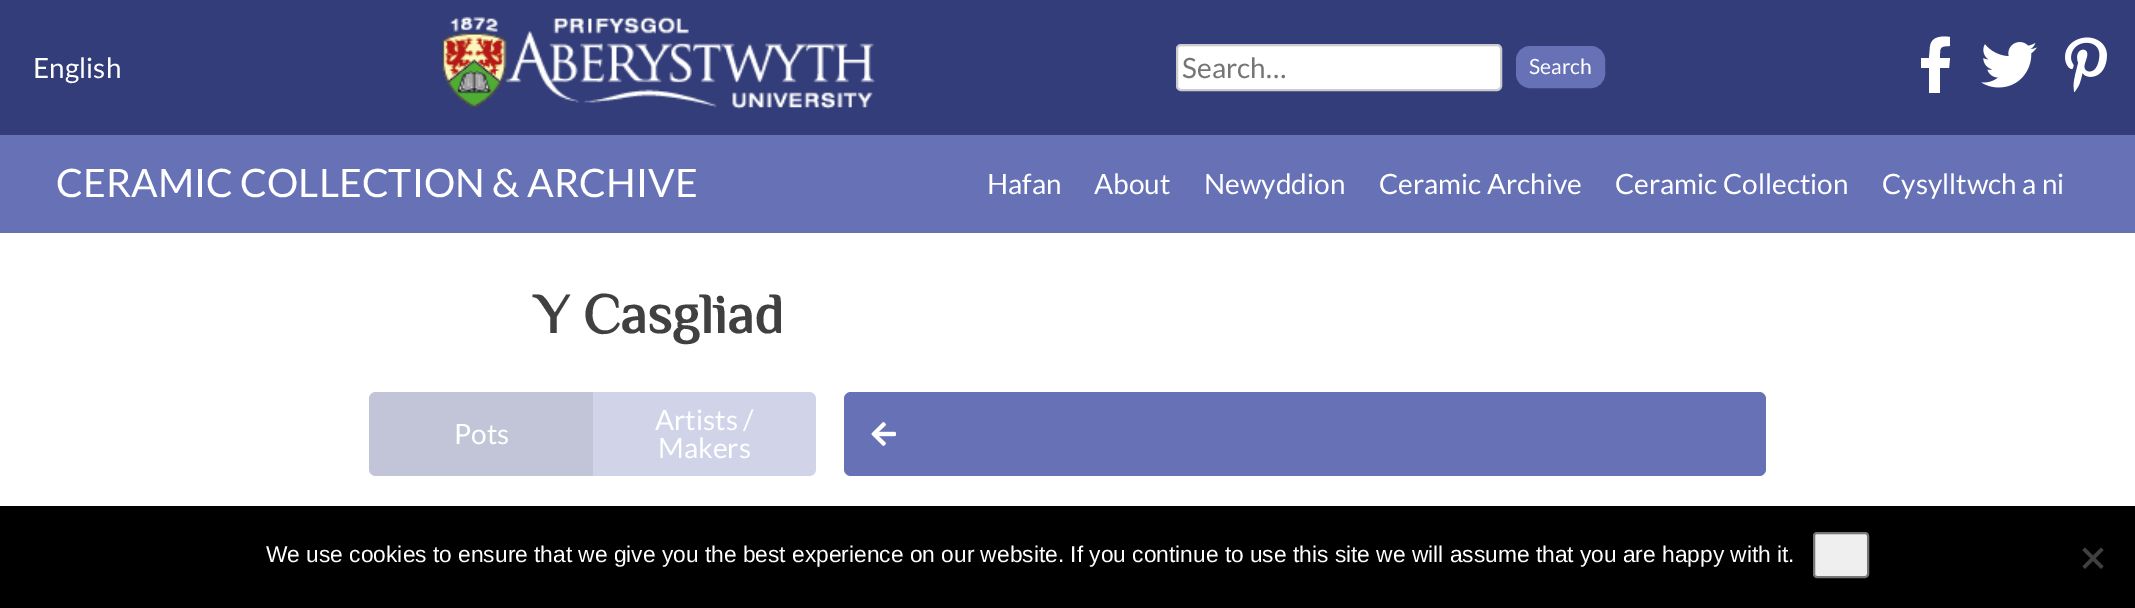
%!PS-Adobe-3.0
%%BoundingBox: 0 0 2135 608
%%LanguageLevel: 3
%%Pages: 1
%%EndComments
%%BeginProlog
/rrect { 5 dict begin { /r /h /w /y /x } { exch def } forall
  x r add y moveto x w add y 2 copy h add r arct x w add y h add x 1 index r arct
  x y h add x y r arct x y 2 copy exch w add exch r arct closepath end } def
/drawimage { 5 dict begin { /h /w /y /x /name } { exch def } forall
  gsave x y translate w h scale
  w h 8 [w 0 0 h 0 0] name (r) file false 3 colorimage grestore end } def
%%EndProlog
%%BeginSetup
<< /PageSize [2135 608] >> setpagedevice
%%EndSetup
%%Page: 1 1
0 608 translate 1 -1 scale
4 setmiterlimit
1 setgray
0 0 2135 608 rectfill
0.2 0.239 0.475 setrgbcolor
0 0 2135 135 rectfill
(images/1.raw) 442 16 434 93 drawimage
1 setgray
1177 45 324 45 4 rrect gsave fill grestore
0.8 setgray
2 setlinewidth
stroke
0.4 0.443 0.714 setrgbcolor
1518 48 85 38 12 rrect gsave fill grestore
4 setlinewidth
stroke
1 setgray
newpath 1949 68 moveto 1950 58 lineto 1940 58 lineto 1940 48 1939 46 1950 46 curveto 1950 37 lineto 1942 36 1931 36 1930 47 curveto 1929 58 lineto 1921 58 lineto 1921 68 lineto 1929 68 lineto 1929 93 lineto 1940 93 lineto 1940 68 lineto closepath fill
(images/2.raw) 1981 42 56 46 drawimage
(images/3.raw) 2065 37 42 55 drawimage
0.4 0.443 0.714 setrgbcolor
0 135 2135 98 rectfill
0.761 0.773 0.843 setrgbcolor
newpath 376 392 moveto 593 392 lineto 593 476 lineto 376 476 lineto 372 476 369 473 369 469 curveto 369 399 lineto 369 395 372 392 376 392 curveto closepath fill
0.82 0.831 0.914 setrgbcolor
newpath 593 392 moveto 809 392 lineto 813 392 816 395 816 399 curveto 816 469 lineto 816 473 813 476 809 476 curveto 593 476 lineto closepath fill
0.4 0.443 0.714 setrgbcolor
844 392 922 84 7 rrect fill
(images/4.raw) 871 422 25 24 drawimage
0 setgray
0 506 2135 102 rectfill
0.937 setgray
1814 533 54 44 3 rrect gsave fill grestore
0.463 setgray
2 setlinewidth
stroke
0.251 setgray
newpath 2101 547.5 moveto 2103.5 550 lineto 2085 569 lineto 2082.5 566.5 lineto closepath fill
newpath 2082.5 550 moveto 2085 547.5 lineto 2103.5 566.5 lineto 2101 569 lineto closepath fill
/Lato-Regular [28 0 0 -28 0 0] selectfont
1 setgray
33 78 moveto (English) show
0.459 setgray
1182 78 moveto (Search…) show
/Lato-Regular [21 0 0 -21 0 0] selectfont
1 setgray
1529 74 moveto (Search) show
/Lato-Regular [39.25 0 0 -39.25 0 0] selectfont
56 197 moveto (CERAMIC COLLECTION & ARCHIVE) show
/Lato-Regular [28 0 0 -28 0 0] selectfont
987 194 moveto (Hafan) show
1094 194 moveto (About) show
1204 194 moveto (Newyddion) show
1379 194 moveto (Ceramic Archive) show
1615 194 moveto (Ceramic Collection) show
1882 194 moveto (Cysylltwch a ni) show
/ZCOOLXiaoWei-Bold [56 0 0 -56 0 0] selectfont
0.251 setgray
534 333 moveto (Y Casgliad) show
/Lato-Regular [28 0 0 -28 0 0] selectfont
1 setgray
454 444 moveto (Pots) show
655 430 moveto (Artists /) show
658 458 moveto (Makers) show
/LiberationSans-Regular [22.75 0 0 -22.75 0 0] selectfont
266 562 moveto (We use cookies to ensure that we give you the best experience on our website. If you continue to use this site we will assume that you are happy with it.) show
showpage
%%EOF
